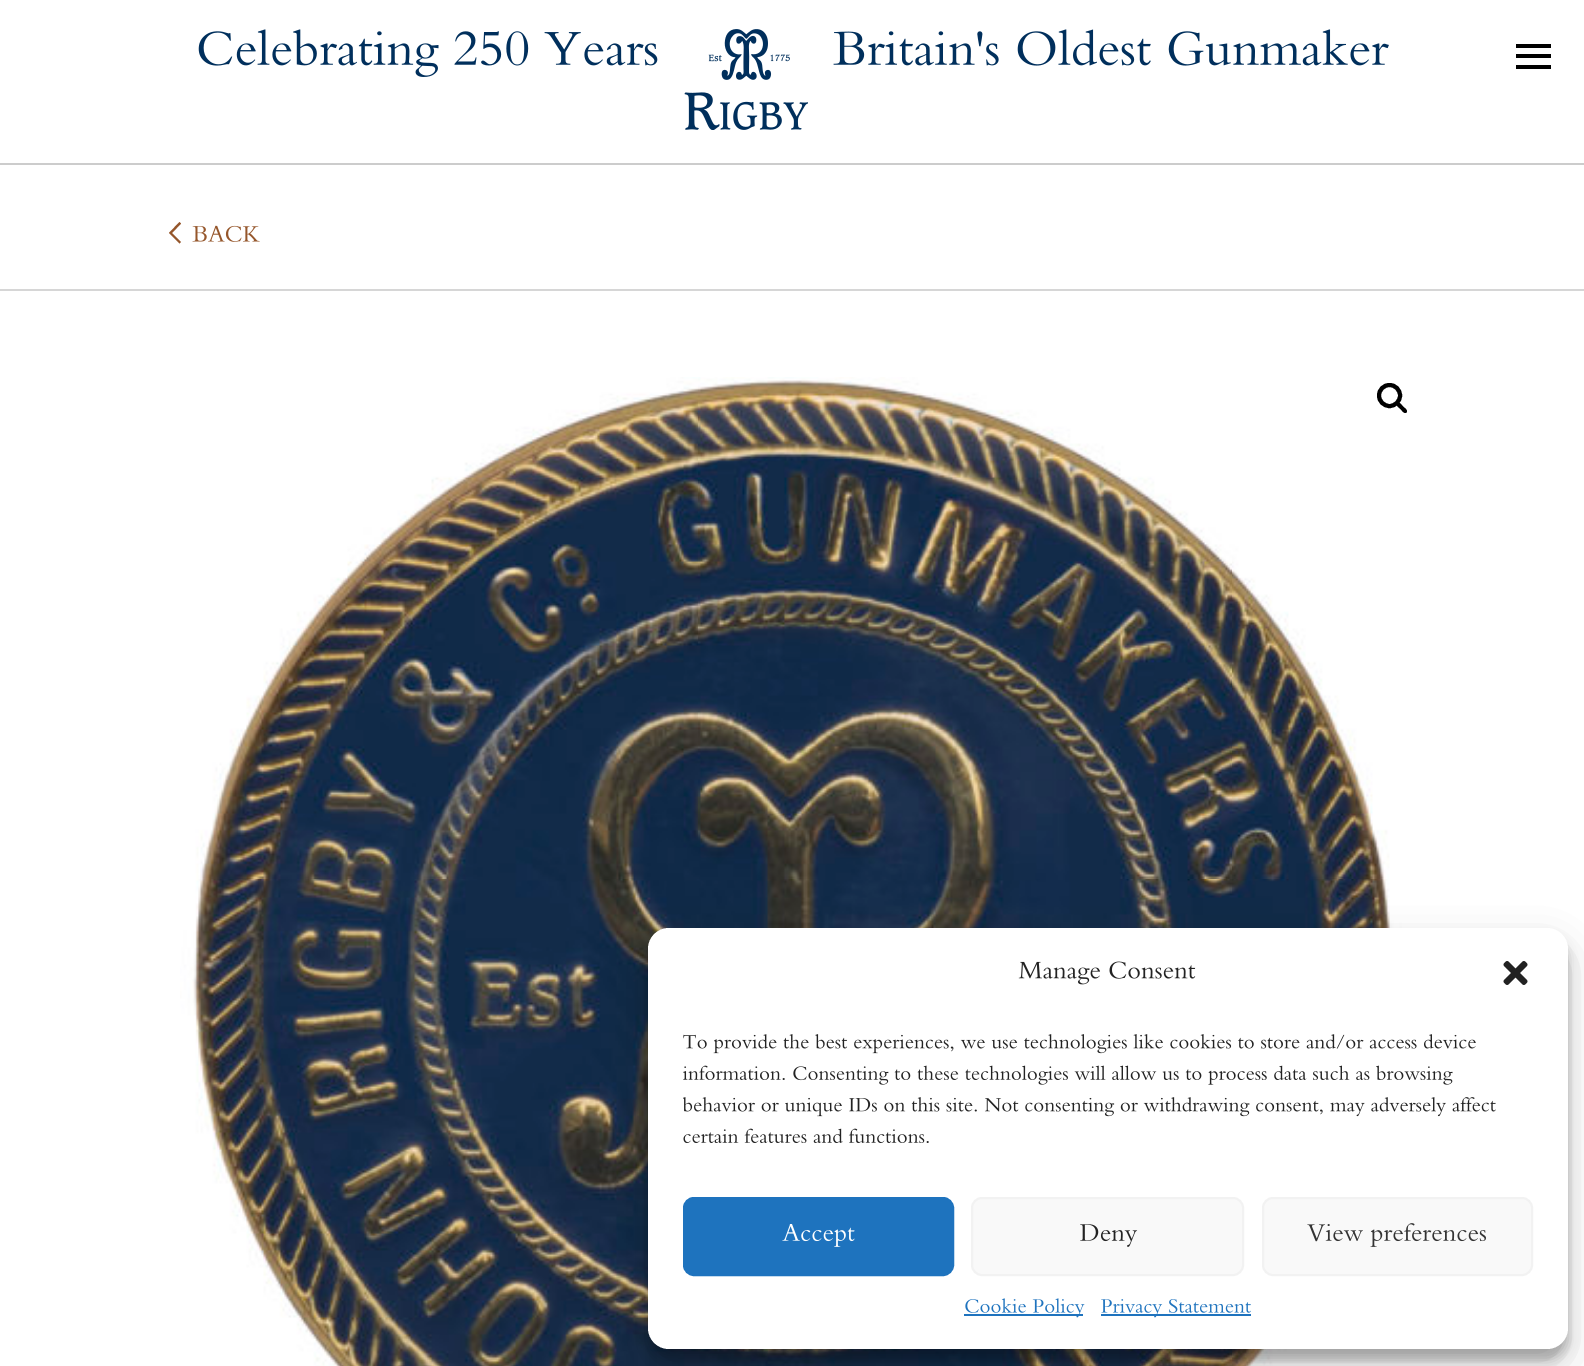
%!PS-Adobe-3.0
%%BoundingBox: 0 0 1584 1366
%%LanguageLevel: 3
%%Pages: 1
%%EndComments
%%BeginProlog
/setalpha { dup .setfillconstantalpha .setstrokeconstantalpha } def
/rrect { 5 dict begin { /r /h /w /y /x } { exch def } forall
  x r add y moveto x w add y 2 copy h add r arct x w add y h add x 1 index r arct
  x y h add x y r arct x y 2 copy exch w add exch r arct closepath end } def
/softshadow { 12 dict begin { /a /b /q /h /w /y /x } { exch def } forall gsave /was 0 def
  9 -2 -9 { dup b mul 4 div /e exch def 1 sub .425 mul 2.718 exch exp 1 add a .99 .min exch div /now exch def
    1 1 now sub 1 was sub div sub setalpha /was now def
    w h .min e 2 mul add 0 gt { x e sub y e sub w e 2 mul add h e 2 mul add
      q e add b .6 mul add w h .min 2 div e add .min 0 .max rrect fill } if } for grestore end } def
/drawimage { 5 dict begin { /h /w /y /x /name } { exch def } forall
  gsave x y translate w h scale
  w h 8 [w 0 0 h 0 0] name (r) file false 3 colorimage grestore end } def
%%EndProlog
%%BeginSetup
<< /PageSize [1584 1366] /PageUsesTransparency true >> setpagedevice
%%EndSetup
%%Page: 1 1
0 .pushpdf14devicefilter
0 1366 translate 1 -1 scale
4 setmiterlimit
1 setgray
0 0 1584 1366 rectfill
0.8 setgray
0 163 1584 2 rectfill
(images/1.raw) 198 29 460 48 drawimage
(images/2.raw) 684 29 124 101 drawimage
(images/3.raw) 833 29 556 37 drawimage
0 setgray
1516 44 35 4 rectfill
1516 54 35 4 rectfill
1516 65 35 4 rectfill
0.839 setgray
0 289 1584 2 rectfill
0.584 0.337 0.169 setrgbcolor
newpath 169 233 moveto 179.5 222 lineto 181 223.5 lineto 172 233 lineto 181 242 lineto 179.5 243.5 lineto closepath fill
(images/4.raw) 192 225 68 17 drawimage
(images/5.raw) 180 377 1222 989 drawimage
0 setgray
4 setlinewidth
newpath 1389.5 395.5 10.5 0 360 arc closepath stroke
newpath 1397 403 moveto 1399 401 1402 405.5 1403 406.5 curveto 1404 407.5 1408.5 410.5 1406.5 412.5 curveto 1404.5 414.5 1401.5 410 1400.5 409 curveto 1399.5 408 1395 405 1397 403 curveto closepath fill
648 938 920 422 21 5 0.23 softshadow
648 945 920 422 21 17.5 0.19 softshadow
1 setgray
648 928 920 421 21 rrect fill
(images/6.raw) 1018 961 178 24 drawimage
(images/7.raw) 1503 961 25 24 drawimage
(images/8.raw) 683 1034 793 20 drawimage
(images/9.raw) 683 1065 770 20 drawimage
(images/10.raw) 683 1097 813 20 drawimage
(images/11.raw) 683 1128 246 15 drawimage
0.118 0.451 0.745 setrgbcolor
684 1198 269 77 10 rrect gsave fill grestore
2 setlinewidth
stroke
(images/12.raw) 782 1224 73 23 drawimage
0.976 setgray
972 1198 271 77 10 rrect gsave fill grestore
0.949 setgray
stroke
(images/13.raw) 1080 1224 58 23 drawimage
0.976 setgray
1263 1198 269 77 10 rrect gsave fill grestore
0.949 setgray
stroke
(images/14.raw) 1307 1223 179 24 drawimage
0.118 0.451 0.745 setrgbcolor
964 1314 119 2 rectfill
(images/15.raw) 965 1298 120 20 drawimage
1101 1314 150 2 rectfill
(images/16.raw) 1101 1299 150 19 drawimage
.poppdf14devicefilter showpage
%%EOF
